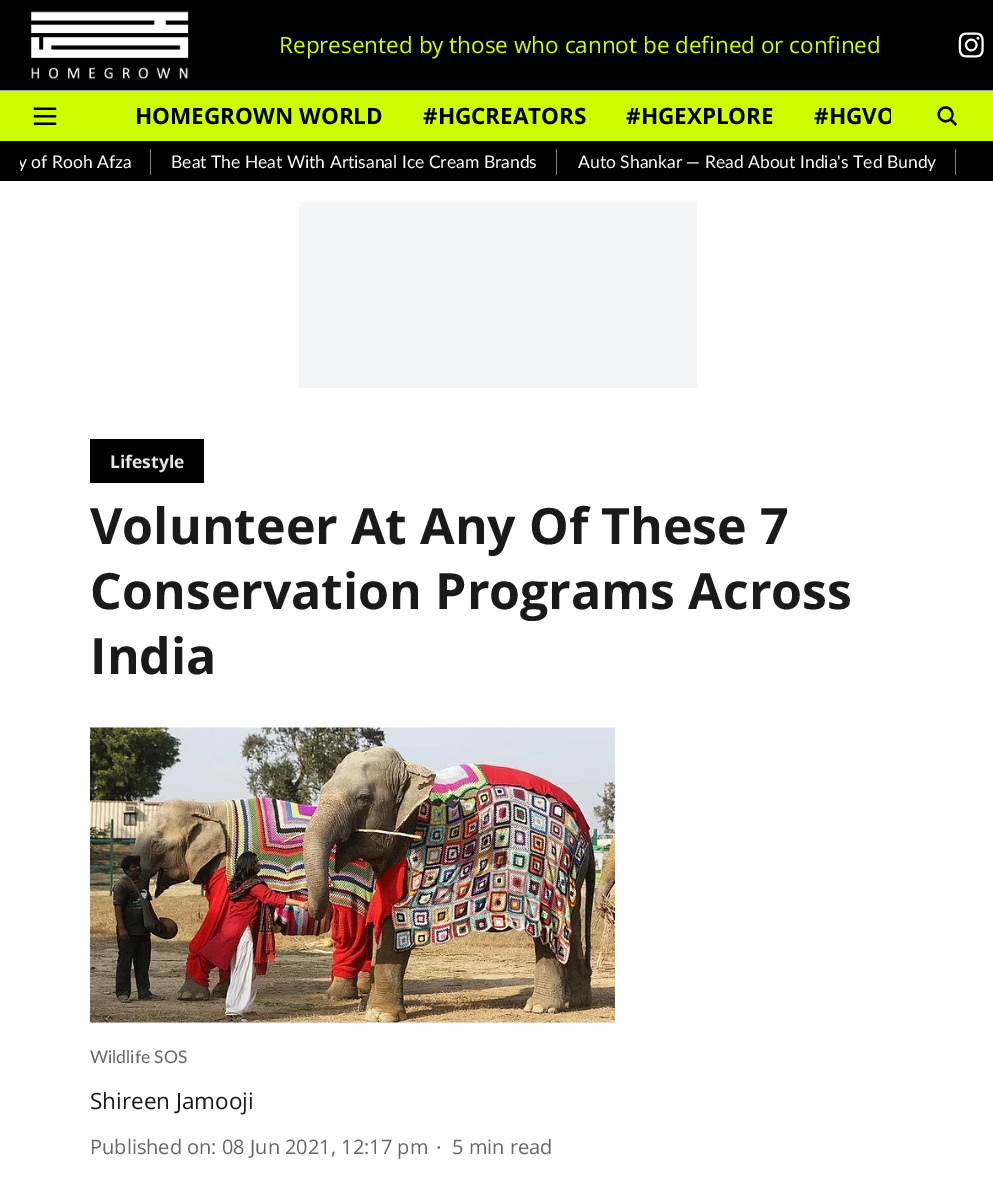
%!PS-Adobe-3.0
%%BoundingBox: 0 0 993 1178
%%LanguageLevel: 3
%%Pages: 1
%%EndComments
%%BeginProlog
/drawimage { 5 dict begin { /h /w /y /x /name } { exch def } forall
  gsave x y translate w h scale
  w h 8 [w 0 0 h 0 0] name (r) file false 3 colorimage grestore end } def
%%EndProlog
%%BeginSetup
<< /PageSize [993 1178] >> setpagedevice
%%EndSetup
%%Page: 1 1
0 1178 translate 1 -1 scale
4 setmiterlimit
1 setgray
0 0 993 1178 rectfill
0 setgray
0 0 993 90 rectfill
0.643 setgray
0 90 993 1 rectfill
(images/1.raw) 30 11 159 68 drawimage
(images/2.raw) 958 32 26 26 drawimage
0.808 1 0 setrgbcolor
0 91 993 50 rectfill
(images/3.raw) 33 107 24 18 drawimage
(images/4.raw) 937 106 20 20 drawimage
0 setgray
0 141 993 40 rectfill
0.502 setgray
150 149 1 26 rectfill
556 149 1 26 rectfill
955 149 1 26 rectfill
0.957 0.961 0.969 setrgbcolor
299 202 398 186 rectfill
0 setgray
90 439 114 44 rectfill
0.941 setgray
90 1022 525 1 rectfill
(images/5.raw) 90 727 525 296 drawimage
0.4 setgray
newpath 438.8 1147.5 1.2 0 360 arc closepath fill
/OpenSans-Regular [22.5 0 0 -22.5 0 0] selectfont
0.808 1 0 setrgbcolor
279 53 moveto (Represented by those who cannot be defined or confined) show
/OpenSans-Bold [22.5 0 0 -22.5 0 0] selectfont
0 setgray
135 124 moveto (HOMEGROWN WORLD) show
423 124 moveto (#HGCREATORS) show
626 124 moveto (#HGEXPLORE) show
gsave
115 93 776 48 rectclip
814 124 moveto (#HGVO) show
grestore
gsave
20 149 954 26 rectclip
/Lato-Regular [17.5 0 0 -17.5 0 0] selectfont
1 setgray
18 168 moveto (y of Rooh Afza) show
grestore
/Lato-Regular [17.5 0 0 -17.5 0 0] selectfont
1 setgray
171 168 moveto (Beat The Heat With Artisanal Ice Cream Brands) show
578 168 moveto (Auto Shankar — Read About India's Ted Bundy) show
/OpenSans-Bold [17.5 0 0 -17.5 0 0] selectfont
0.902 setgray
110 468 moveto (Lifestyle) show
/OpenSans-Bold [50 0 0 -50 0 0] selectfont
0.102 setgray
90 544 moveto (Volunteer At Any Of These 7) show
90 609 moveto (Conservation Programs Across) show
90 674 moveto (India) show
/Lato-Regular [17.5 0 0 -17.5 0 0] selectfont
0.4 setgray
90 1063 moveto (Wildlife SOS) show
/OpenSans-Regular [22.5 0 0 -22.5 0 0] selectfont
0.102 setgray
90 1109 moveto (Shireen Jamooji) show
/OpenSans-Regular [20 0 0 -20 0 0] selectfont
0.4 setgray
90 1154 moveto (Published on: 08 Jun 2021, 12:17 pm) show
452 1154 moveto (5 min read) show
showpage
%%EOF
